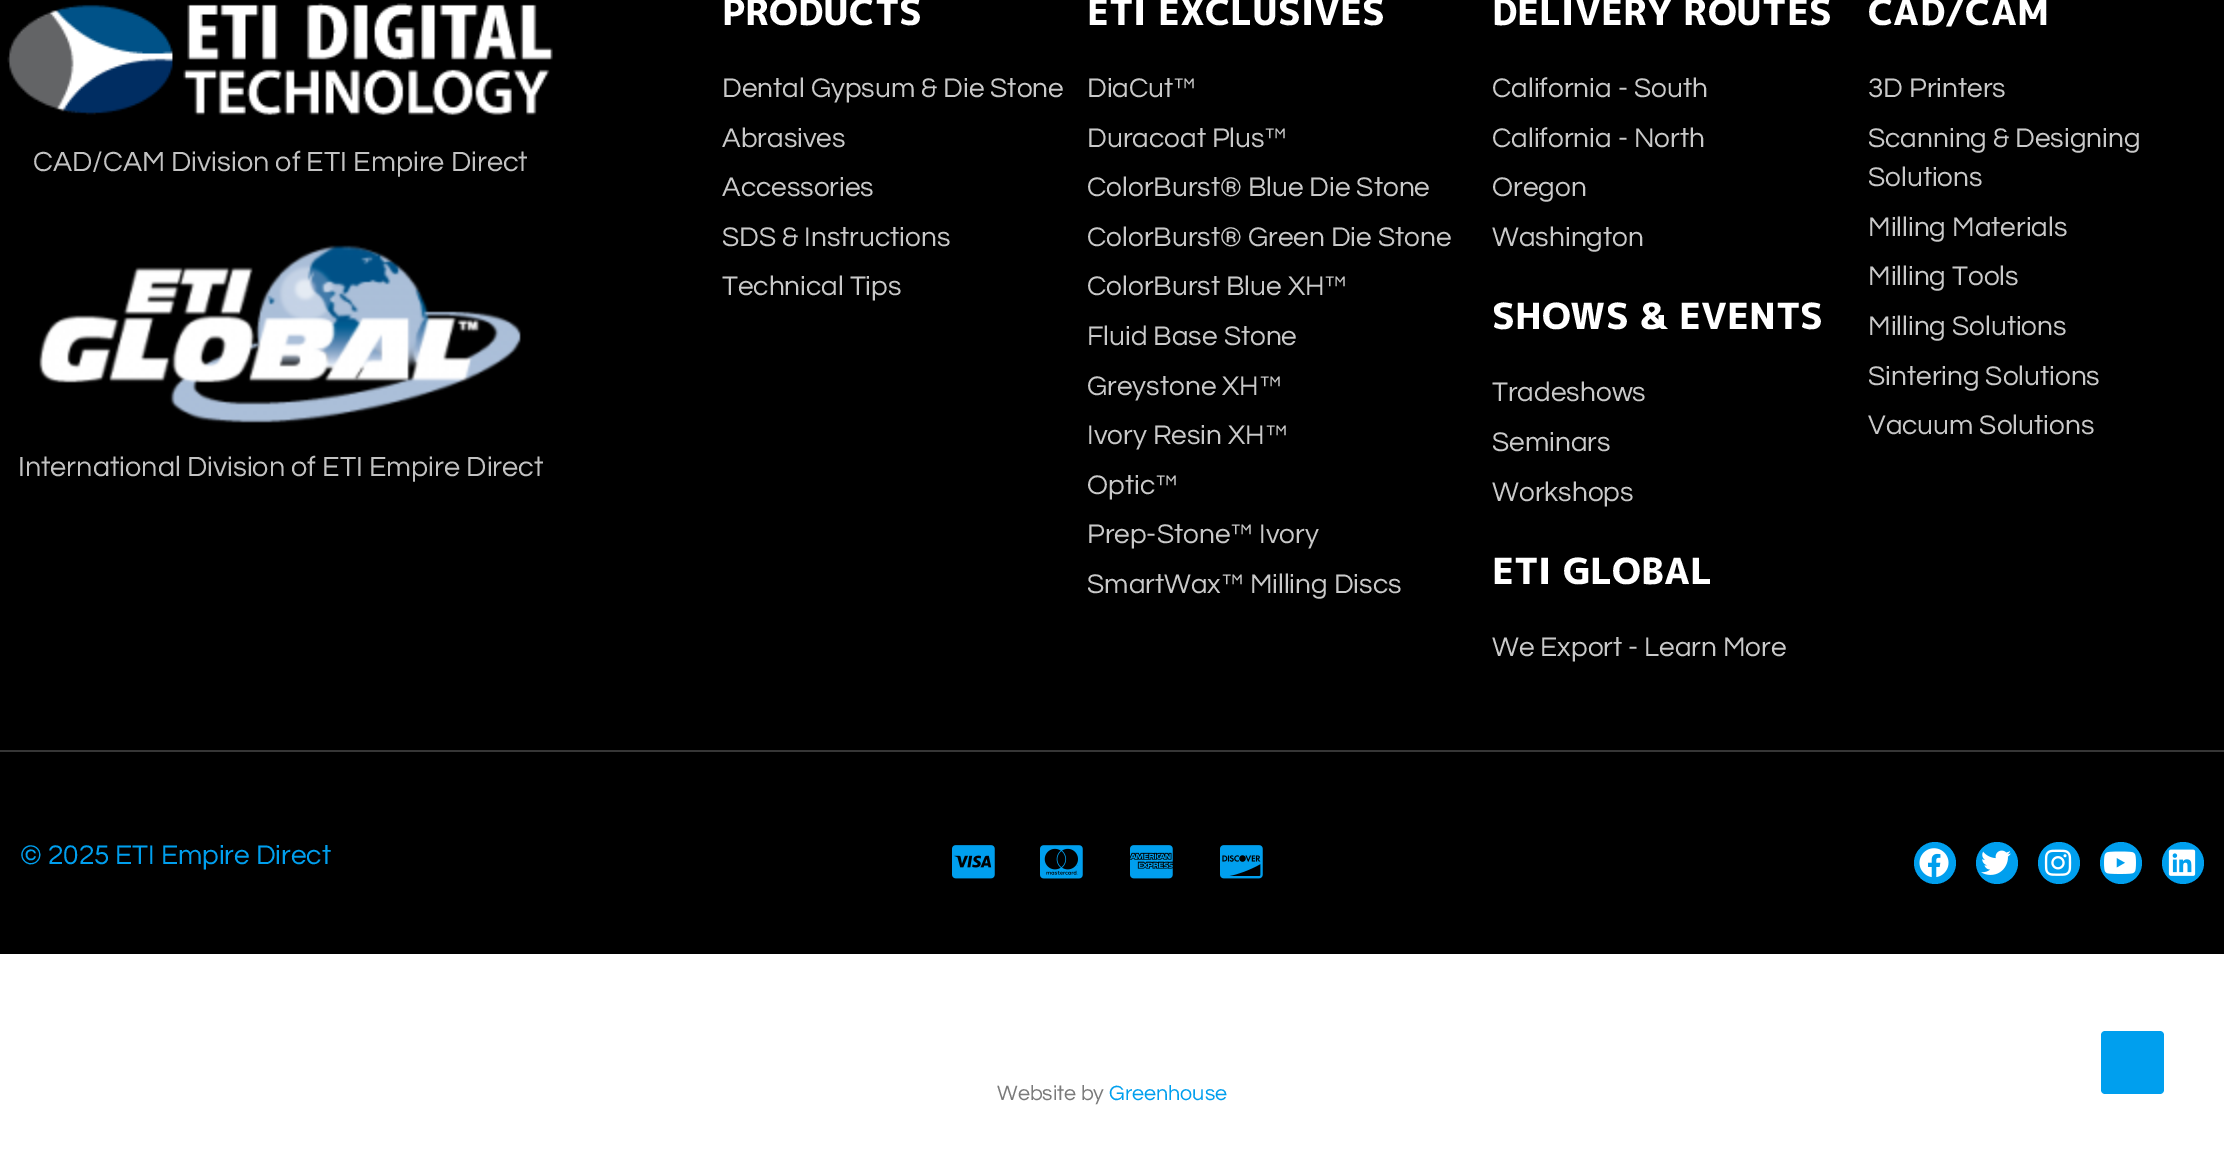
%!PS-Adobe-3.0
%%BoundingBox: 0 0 2224 1154
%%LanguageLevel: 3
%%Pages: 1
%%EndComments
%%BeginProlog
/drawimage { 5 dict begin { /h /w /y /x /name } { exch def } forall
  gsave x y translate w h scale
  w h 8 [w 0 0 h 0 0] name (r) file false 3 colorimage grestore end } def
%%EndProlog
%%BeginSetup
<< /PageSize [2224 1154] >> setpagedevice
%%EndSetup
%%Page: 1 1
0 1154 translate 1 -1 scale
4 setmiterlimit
1 setgray
0 0 2224 1154 rectfill
0 setgray
0 0 2224 954 rectfill
(images/1.raw) 7 3 546 113 drawimage
(images/2.raw) 39 245 482 178 drawimage
0.212 setgray
0 750 2224 2 rectfill
(images/3.raw) 952 845 43 34 drawimage
(images/4.raw) 1040 845 43 34 drawimage
(images/5.raw) 1130 845 43 34 drawimage
(images/6.raw) 1220 845 43 34 drawimage
0 0.624 0.933 setrgbcolor
newpath 1935 863 21 0 360 arc closepath fill
(images/7.raw) 1919 848 30 30 drawimage
newpath 1997 863 21 0 360 arc closepath fill
(images/8.raw) 1981 850 30 25 drawimage
newpath 2059 863 21 0 360 arc closepath fill
(images/9.raw) 2044 849 28 27 drawimage
newpath 2121 863 21 0 360 arc closepath fill
(images/10.raw) 2104 851 32 23 drawimage
newpath 2183 863 21 0 360 arc closepath fill
(images/11.raw) 2168 849 28 27 drawimage
newpath 2160 1094 moveto 2105 1094 lineto 2103 1094 2101 1092 2101 1090 curveto 2101 1035 lineto 2101 1033 2103 1031 2105 1031 curveto 2160 1031 lineto 2162 1031 2164 1033 2164 1035 curveto 2164 1090 lineto 2164 1092 2162 1094 2160 1094 curveto closepath fill
/Questrial-Regular [28.75 0 0 -28.75 0 0] selectfont
0.761 setgray
33 171 moveto (CAD/CAM Division of ETI Empire Direct) show
18 476 moveto (International Division of ETI Empire Direct) show
/MPLUS1p-ExtraBold [36 0 0 -36 0 0] selectfont
1 setgray
722 25 moveto (PRODUCTS) show
/Questrial-Regular [28 0 0 -28 0 0] selectfont
0.788 setgray
722 97 moveto (Dental Gypsum & Die Stone) show
722 147 moveto (Abrasives) show
722 196 moveto (Accessories) show
722 246 moveto (SDS & Instructions) show
722 295 moveto (Technical Tips) show
/MPLUS1p-ExtraBold [36 0 0 -36 0 0] selectfont
1 setgray
1087 25 moveto (ETI EXCLUSIVES) show
/Questrial-Regular [28 0 0 -28 0 0] selectfont
0.788 setgray
1087 97 moveto (DiaCut™) show
1087 147 moveto (Duracoat Plus™) show
1087 196 moveto (ColorBurst® Blue Die Stone) show
1087 246 moveto (ColorBurst® Green Die Stone) show
1087 295 moveto (ColorBurst Blue XH™) show
1087 345 moveto (Fluid Base Stone) show
1087 395 moveto (Greystone XH™) show
1087 444 moveto (Ivory Resin XH™) show
1087 494 moveto (Optic™) show
1087 543 moveto (Prep-Stone™ Ivory) show
1087 593 moveto (SmartWax™ Milling Discs) show
/MPLUS1p-ExtraBold [36 0 0 -36 0 0] selectfont
1 setgray
1492 25 moveto (DELIVERY ROUTES) show
/Questrial-Regular [28 0 0 -28 0 0] selectfont
0.788 setgray
1492 97 moveto (California - South) show
1492 147 moveto (California - North) show
1492 196 moveto (Oregon) show
1492 246 moveto (Washington) show
/MPLUS1p-ExtraBold [36 0 0 -36 0 0] selectfont
1 setgray
1492 329 moveto (SHOWS & EVENTS) show
/Questrial-Regular [28 0 0 -28 0 0] selectfont
0.788 setgray
1492 401 moveto (Tradeshows) show
1492 451 moveto (Seminars) show
1492 501 moveto (Workshops) show
/MPLUS1p-ExtraBold [36 0 0 -36 0 0] selectfont
1 setgray
1492 584 moveto (ETI GLOBAL) show
/Questrial-Regular [28 0 0 -28 0 0] selectfont
0.788 setgray
1492 656 moveto (We Export - Learn More) show
/MPLUS1p-ExtraBold [36 0 0 -36 0 0] selectfont
1 setgray
1868 25 moveto (CAD/CAM) show
/Questrial-Regular [28 0 0 -28 0 0] selectfont
0.788 setgray
1868 97 moveto (3D Printers) show
1868 147 moveto (Scanning & Designing) show
1868 186 moveto (Solutions) show
1868 236 moveto (Milling Materials) show
1868 285 moveto (Milling Tools) show
1868 335 moveto (Milling Solutions) show
1868 385 moveto (Sintering Solutions) show
1868 434 moveto (Vacuum Solutions) show
0 0.624 0.933 setrgbcolor
20 864 moveto (© 2025 ETI Empire Direct) show
/Questrial-Regular [21.5 0 0 -21.5 0 0] selectfont
0.478 setgray
997 1100 moveto (Website by) show
0 0.624 0.933 setrgbcolor
1109 1100 moveto (Greenhouse) show
showpage
%%EOF
